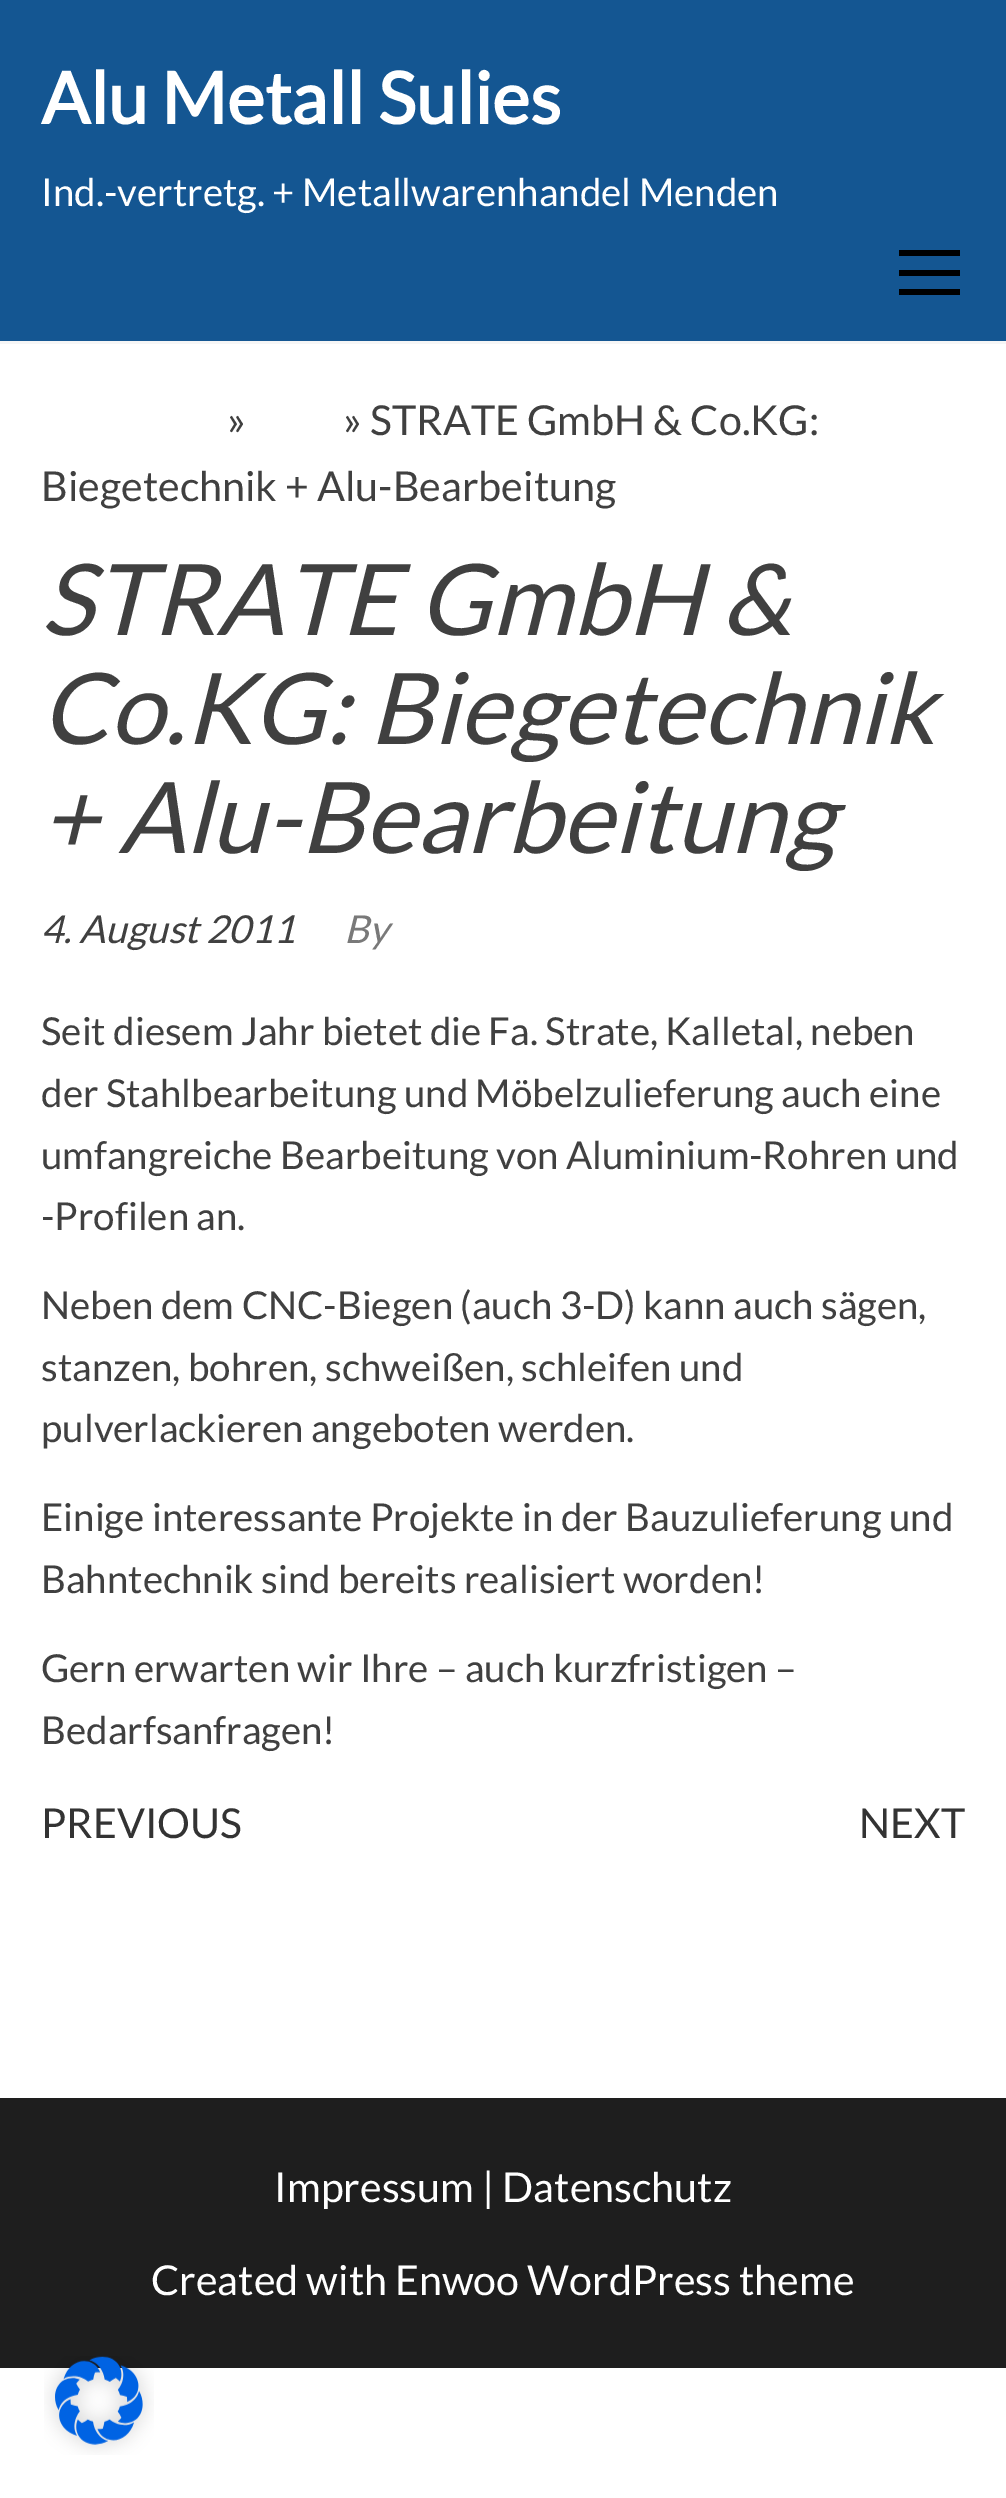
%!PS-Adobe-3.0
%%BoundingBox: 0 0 1006 2498
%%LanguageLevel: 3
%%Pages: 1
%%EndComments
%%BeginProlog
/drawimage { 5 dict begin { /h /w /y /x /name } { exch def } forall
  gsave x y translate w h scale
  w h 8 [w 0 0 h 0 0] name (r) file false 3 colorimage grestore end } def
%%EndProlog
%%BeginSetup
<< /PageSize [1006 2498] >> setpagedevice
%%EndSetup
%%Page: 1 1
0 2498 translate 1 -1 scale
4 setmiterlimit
1 setgray
0 0 1006 2498 rectfill
0.078 0.337 0.573 setrgbcolor
0 0 1006 341 rectfill
0.965 setgray
0 341 1006 3 rectfill
0 setgray
899 250 61 6 rectfill
899 270 61 6 rectfill
899 289 61 6 rectfill
0.118 setgray
0 2098 1006 270 rectfill
(images/1.raw) 44 2356 110 99 drawimage
/Lato-Bold [71.5 0 0 -71.5 0 0] selectfont
1 setgray
41 124 moveto (Alu Metall Sulies) show
/Lato-Regular [38.5 0 0 -38.5 0 0] selectfont
41 206 moveto (Ind.-vertretg. + Metallwarenhandel Menden) show
/Lato-Regular [41.25 0 0 -41.25 0 0] selectfont
0.251 setgray
227 435 moveto (») show
343 435 moveto (» STRATE GmbH & Co.KG:) show
41 501 moveto (Biegetechnik + Alu-Bearbeitung) show
/Lato-Italic [99 0 0 -99 0 0] selectfont
41 635 moveto (STRATE GmbH &) show
41 744 moveto (Co.KG: Biegetechnik) show
41 853 moveto (+ Alu-Bearbeitung) show
/Lato-Italic [38.5 0 0 -38.5 0 0] selectfont
41 943 moveto (4. August 2011) show
0.475 setgray
344 943 moveto (By) show
/Lato-Regular [38.5 0 0 -38.5 0 0] selectfont
0.251 setgray
41 1045 moveto (Seit diesem Jahr bietet die Fa. Strate, Kalletal, neben) show
41 1107 moveto (der Stahlbearbeitung und Möbelzulieferung auch eine) show
41 1169 moveto (umfangreiche Bearbeitung von Aluminium-Rohren und) show
41 1230 moveto (-Profilen an.) show
41 1319 moveto (Neben dem CNC-Biegen \(auch 3-D\) kann auch sägen,) show
41 1381 moveto (stanzen, bohren, schweißen, schleifen und) show
41 1442 moveto (pulverlackieren angeboten werden.) show
41 1531 moveto (Einige interessante Projekte in der Bauzulieferung und) show
41 1593 moveto (Bahntechnik sind bereits realisiert worden!) show
41 1682 moveto (Gern erwarten wir Ihre – auch kurzfristigen –) show
41 1744 moveto (Bedarfsanfragen!) show
/Lato-Regular [41.25 0 0 -41.25 0 0] selectfont
0.2 setgray
41 1838 moveto (PREVIOUS) show
859 1838 moveto (NEXT) show
1 setgray
274 2202 moveto (Impressum | Datenschutz) show
151 2295 moveto (Created with Enwoo WordPress theme) show
showpage
%%EOF
